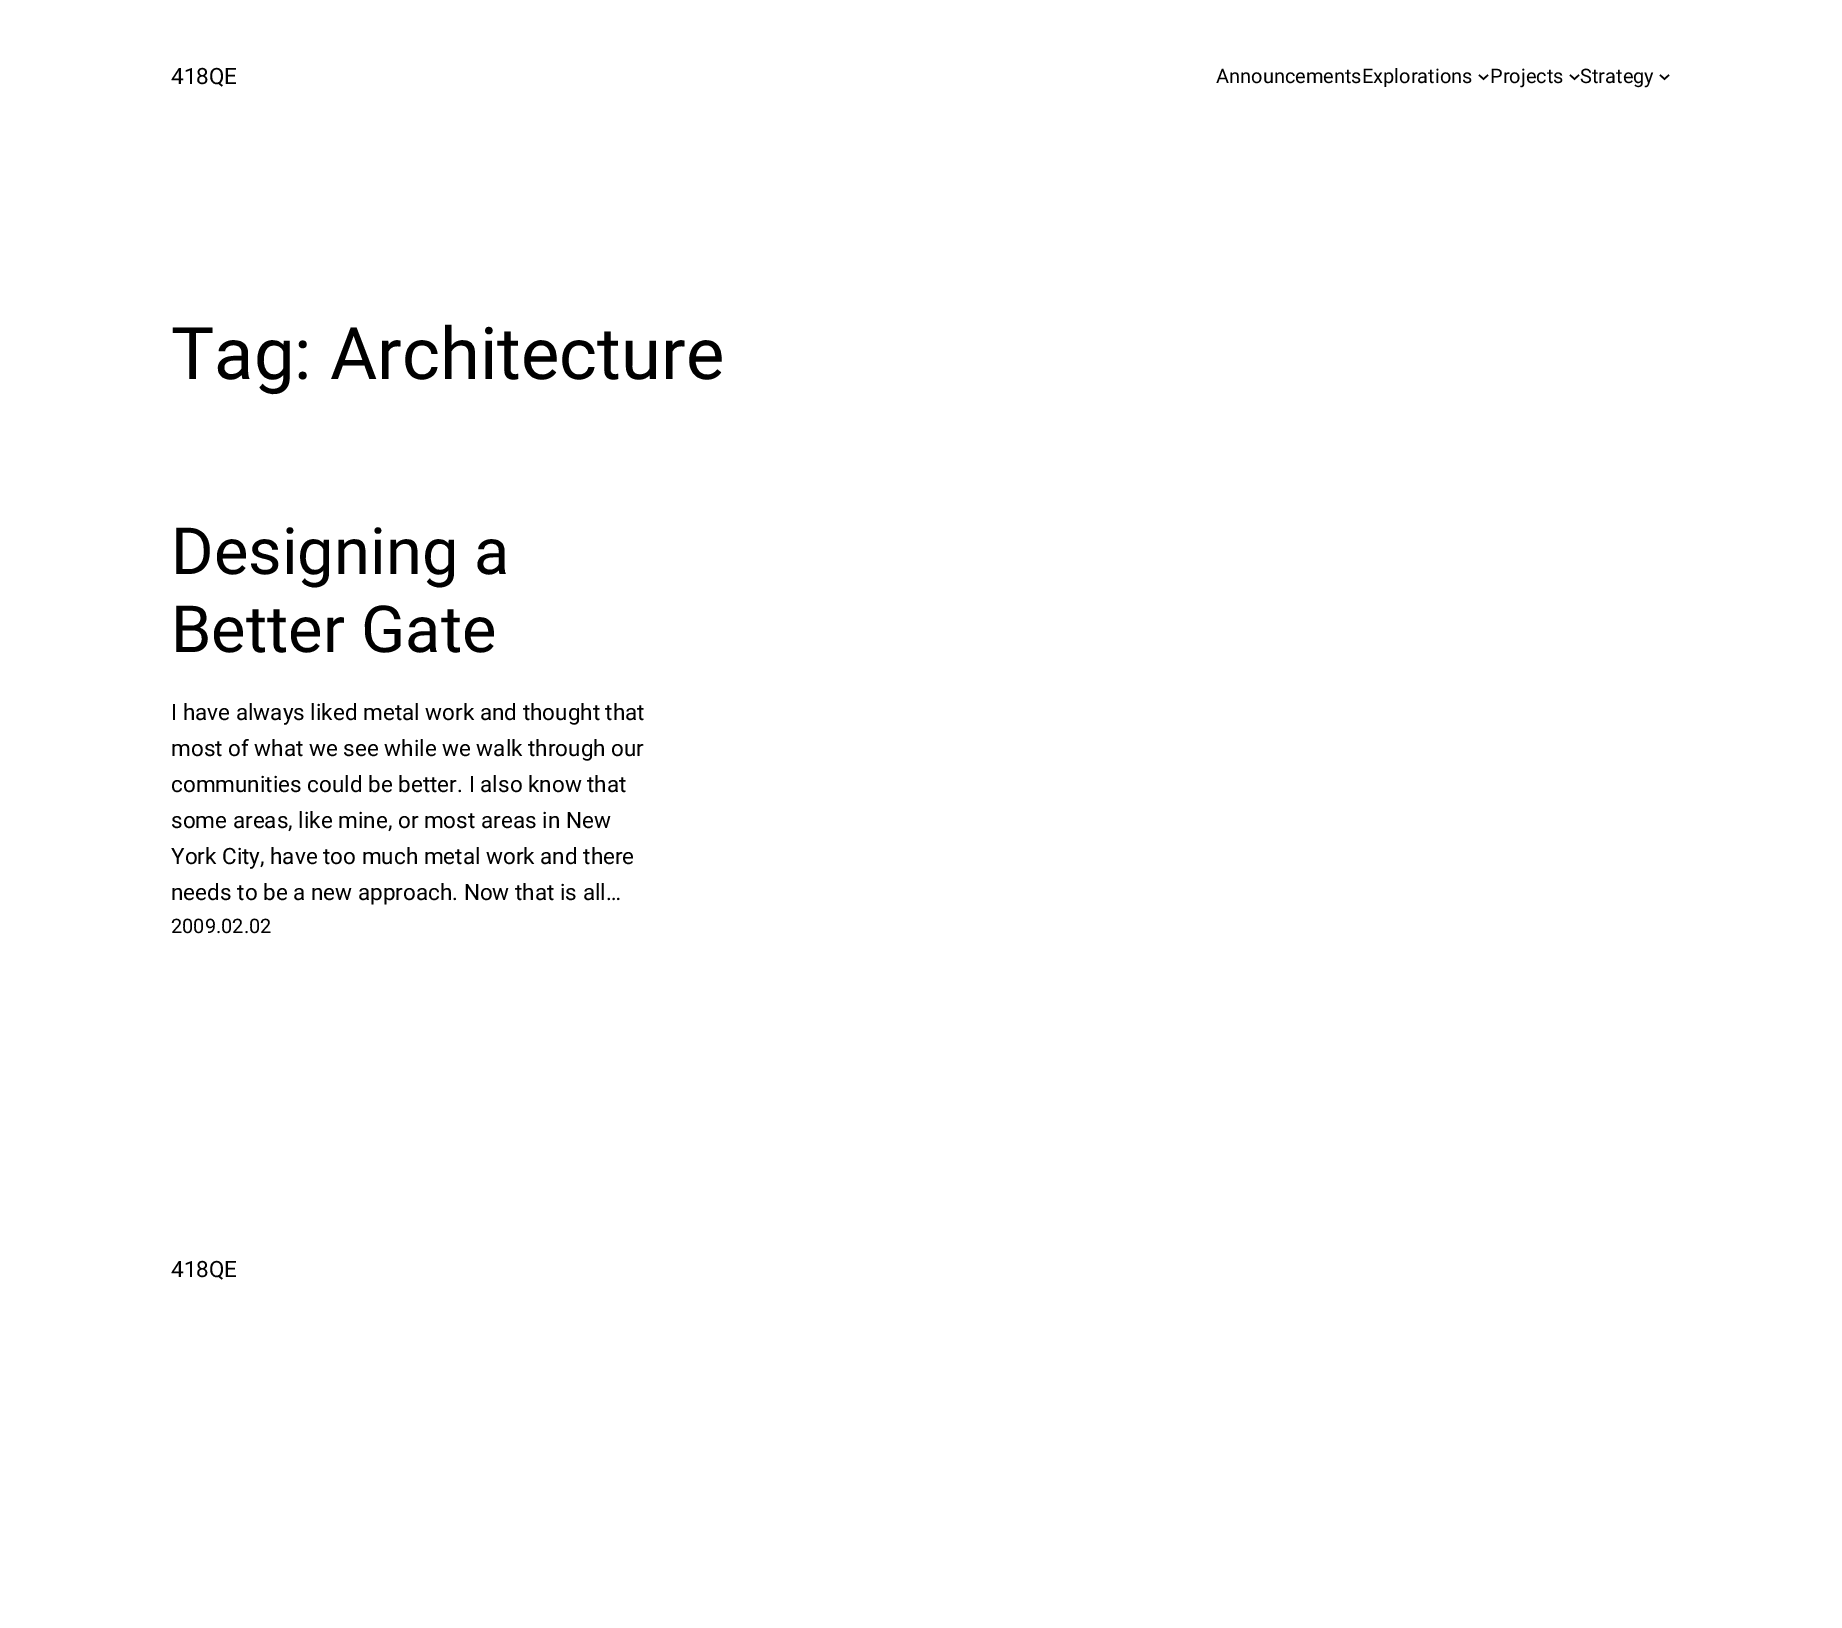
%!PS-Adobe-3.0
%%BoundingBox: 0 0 1842 1628
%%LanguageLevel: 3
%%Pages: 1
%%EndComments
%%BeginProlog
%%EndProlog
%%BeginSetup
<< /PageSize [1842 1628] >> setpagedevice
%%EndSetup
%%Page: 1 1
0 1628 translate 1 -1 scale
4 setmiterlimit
1 setgray
0 0 1842 1628 rectfill
0 setgray
1.5 setlinewidth
newpath 1479 75 moveto 1483.5 79 lineto 1488 75 lineto stroke
newpath 1570 75 moveto 1574.5 79 lineto 1579 75 lineto stroke
newpath 1660 75 moveto 1664.5 79 lineto 1669 75 lineto stroke
/Roboto-Regular [22.5 0 0 -22.5 0 0] selectfont
171 84 moveto (418QE) show
/Roboto-Regular [20 0 0 -20 0 0] selectfont
1216 83 moveto (AnnouncementsExplorations) show
1490 83 moveto (Projects) show
1580 83 moveto (Strategy) show
/Roboto-Regular [72.5 0 0 -72.5 0 0] selectfont
171 379 moveto (Tag: Architecture) show
/Roboto-Regular [65 0 0 -65 0 0] selectfont
171 574 moveto (Designing a) show
171 652 moveto (Better Gate) show
/Roboto-Regular [22.5 0 0 -22.5 0 0] selectfont
171 720 moveto (I have always liked metal work and thought that) show
171 756 moveto (most of what we see while we walk through our) show
171 792 moveto (communities could be better. I also know that) show
171 828 moveto (some areas, like mine, or most areas in New) show
171 864 moveto (York City, have too much metal work and there) show
171 900 moveto (needs to be a new approach. Now that is all…) show
/Roboto-Regular [20 0 0 -20 0 0] selectfont
171 933 moveto (2009.02.02) show
/Roboto-Regular [22.5 0 0 -22.5 0 0] selectfont
171 1277 moveto (418QE) show
showpage
%%EOF
